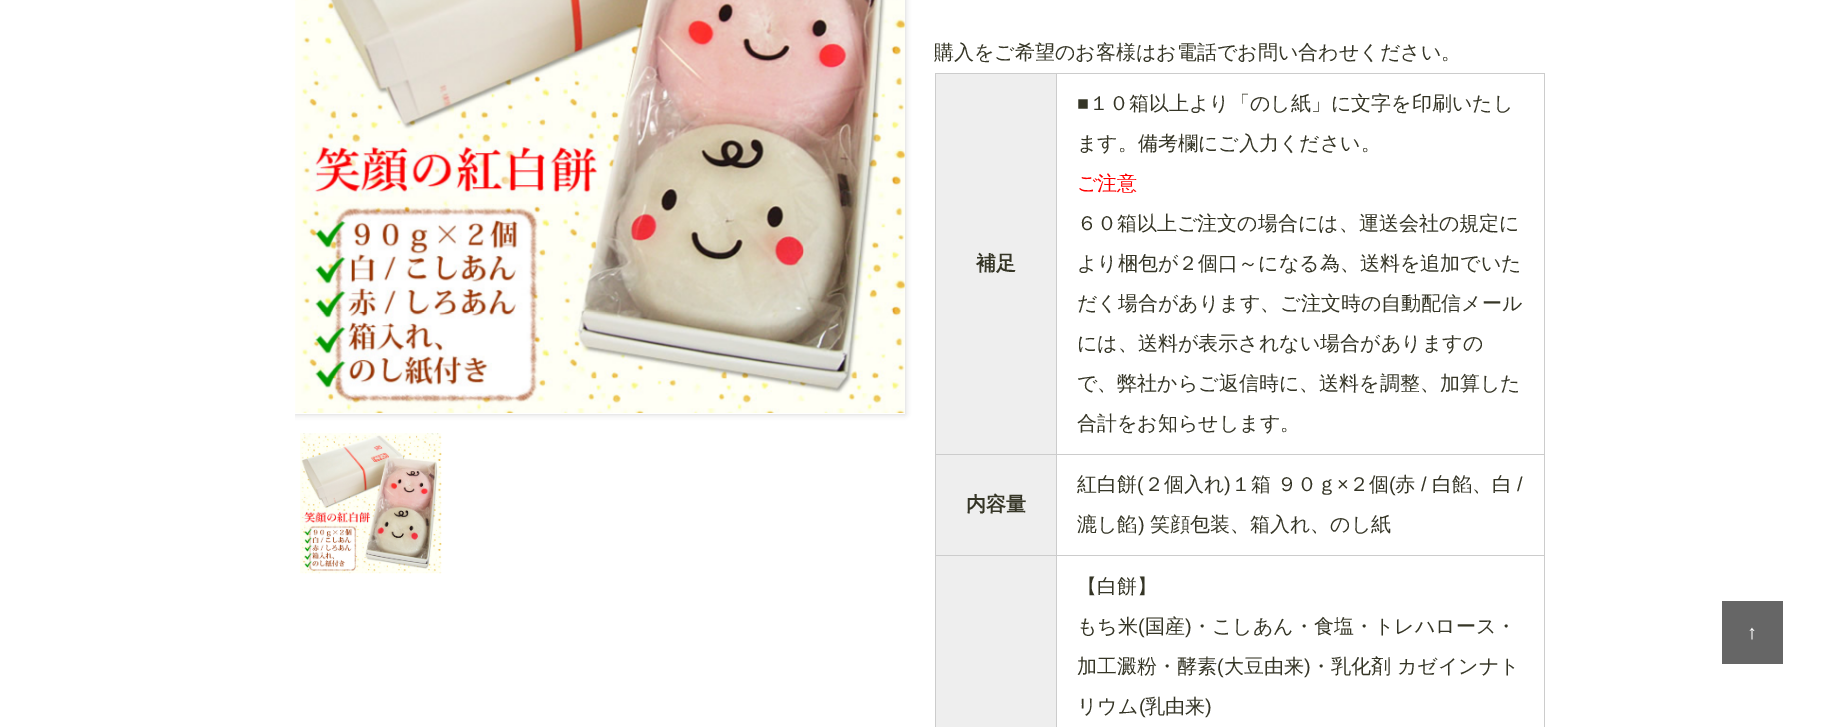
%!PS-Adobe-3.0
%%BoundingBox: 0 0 1838 727
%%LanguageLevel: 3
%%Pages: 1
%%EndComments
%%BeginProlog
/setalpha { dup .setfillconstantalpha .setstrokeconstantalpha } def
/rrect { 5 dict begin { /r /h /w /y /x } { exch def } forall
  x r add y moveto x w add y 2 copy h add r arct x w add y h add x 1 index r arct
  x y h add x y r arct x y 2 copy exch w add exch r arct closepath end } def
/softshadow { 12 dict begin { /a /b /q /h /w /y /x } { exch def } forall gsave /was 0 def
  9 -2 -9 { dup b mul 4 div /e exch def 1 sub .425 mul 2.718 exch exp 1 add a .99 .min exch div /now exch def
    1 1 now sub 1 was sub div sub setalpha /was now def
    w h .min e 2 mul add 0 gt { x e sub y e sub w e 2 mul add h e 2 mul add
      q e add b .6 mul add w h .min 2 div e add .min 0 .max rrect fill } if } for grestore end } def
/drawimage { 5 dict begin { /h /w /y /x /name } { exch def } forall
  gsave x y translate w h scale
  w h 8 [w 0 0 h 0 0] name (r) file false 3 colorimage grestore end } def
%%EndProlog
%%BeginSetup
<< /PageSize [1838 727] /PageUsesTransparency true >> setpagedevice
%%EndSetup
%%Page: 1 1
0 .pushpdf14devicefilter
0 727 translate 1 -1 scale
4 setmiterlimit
1 setgray
0 0 1838 727 rectfill
gsave
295 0 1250 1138 rectclip
0.8 setgray
295 -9 610 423 0 3 1 softshadow
grestore
295 0 610 414 rectfill
(images/1.raw) 295 0 610 413 drawimage
0.19 setalpha
1 1 0.957 setrgbcolor
904 22 1 266 rectfill
1 setalpha
(images/2.raw) 300 433 142 141 drawimage
0.8 setgray
935 73 610 1 rectfill
1544 73 1 654 rectfill
0.933 setgray
936 74 120 380 rectfill
0.8 setgray
1056 555 1 172 rectfill
1056 555 489 1 rectfill
1056 454 1 102 rectfill
1056 454 489 1 rectfill
1056 73 1 382 rectfill
935 555 1 172 rectfill
935 555 123 1 rectfill
935 454 1 102 rectfill
935 454 123 1 rectfill
935 73 1 382 rectfill
0.933 setgray
936 455 120 100 rectfill
936 556 120 171 rectfill
0.4 setgray
1722 601 61 63 rectfill
/WenQuanYiZenHei-Medium [20 0 0 -20 0 0] selectfont
0.208 0.208 0.149 setrgbcolor
934 59 moveto (購入をご希望のお客様はお電話でお問い合わせください。) show
/WenQuanYiZenHei-Bold [20 0 0 -20 0 0] selectfont
976 270 moveto (補足) show
/LiberationSans-Regular [20 0 0 -20 0 0] selectfont
1077 110 moveto (■) show
/WenQuanYiZenHei-Medium [20 0 0 -20 0 0] selectfont
1089 110 moveto (１０箱以上より「のし紙」に文字を印刷いたし) show
1077 150 moveto (ます。備考欄にご入力ください。) show
1 0 0 setrgbcolor
1077 190 moveto (ご注意) show
0.208 0.208 0.149 setrgbcolor
1077 230 moveto (６０箱以上ご注文の場合には、運送会社の規定に) show
1077 270 moveto (より梱包が２個口～になる為、送料を追加でいた) show
1077 310 moveto (だく場合があります、ご注文時の自動配信メール) show
1077 350 moveto (には、送料が表示されない場合がありますの) show
1077 390 moveto (で、弊社からご返信時に、送料を調整、加算した) show
1077 430 moveto (合計をお知らせします。) show
/WenQuanYiZenHei-Bold [20 0 0 -20 0 0] selectfont
966 511 moveto (内容量) show
/WenQuanYiZenHei-Medium [20 0 0 -20 0 0] selectfont
1077 491 moveto (紅白餅) show
/LiberationSans-Regular [20 0 0 -20 0 0] selectfont
1137 491 moveto (\() show
/WenQuanYiZenHei-Medium [20 0 0 -20 0 0] selectfont
1144 491 moveto (２個入れ) show
/LiberationSans-Regular [20 0 0 -20 0 0] selectfont
1224 491 moveto (\)) show
/WenQuanYiZenHei-Medium [20 0 0 -20 0 0] selectfont
1231 491 moveto (１箱 ９０ｇ) show
/LiberationSans-Regular [20 0 0 -20 0 0] selectfont
1337 491 moveto (×) show
/WenQuanYiZenHei-Medium [20 0 0 -20 0 0] selectfont
1349 491 moveto (２個) show
/LiberationSans-Regular [20 0 0 -20 0 0] selectfont
1389 491 moveto (\() show
/WenQuanYiZenHei-Medium [20 0 0 -20 0 0] selectfont
1395 491 moveto (赤) show
/LiberationSans-Regular [20 0 0 -20 0 0] selectfont
1421 491 moveto (/) show
/WenQuanYiZenHei-Medium [20 0 0 -20 0 0] selectfont
1432 491 moveto (白餡、白) show
/LiberationSans-Regular [20 0 0 -20 0 0] selectfont
1517 491 moveto (/) show
/WenQuanYiZenHei-Medium [20 0 0 -20 0 0] selectfont
1077 531 moveto (漉し餡) show
/LiberationSans-Regular [20 0 0 -20 0 0] selectfont
1138 531 moveto (\)) show
/WenQuanYiZenHei-Medium [20 0 0 -20 0 0] selectfont
1150 531 moveto (笑顔包装、箱入れ、のし紙) show
1077 593 moveto (【白餅】) show
1077 633 moveto (もち米) show
/LiberationSans-Regular [20 0 0 -20 0 0] selectfont
1138 633 moveto (\() show
/WenQuanYiZenHei-Medium [20 0 0 -20 0 0] selectfont
1145 633 moveto (国産) show
/LiberationSans-Regular [20 0 0 -20 0 0] selectfont
1185 633 moveto (\)) show
/WenQuanYiZenHei-Medium [20 0 0 -20 0 0] selectfont
1192 633 moveto (・こしあん・食塩・トレハロース・) show
1077 673 moveto (加工澱粉・酵素) show
/LiberationSans-Regular [20 0 0 -20 0 0] selectfont
1217 673 moveto (\() show
/WenQuanYiZenHei-Medium [20 0 0 -20 0 0] selectfont
1224 673 moveto (大豆由来) show
/LiberationSans-Regular [20 0 0 -20 0 0] selectfont
1304 673 moveto (\)) show
/WenQuanYiZenHei-Medium [20 0 0 -20 0 0] selectfont
1311 673 moveto (・乳化剤 カゼインナト) show
1077 713 moveto (リウム) show
/LiberationSans-Regular [20 0 0 -20 0 0] selectfont
1139 713 moveto (\() show
/WenQuanYiZenHei-Medium [20 0 0 -20 0 0] selectfont
1145 713 moveto (乳由来) show
/LiberationSans-Regular [20 0 0 -20 0 0] selectfont
1205 713 moveto (\)) show
1 setgray
1747 639 moveto (↑) show
.poppdf14devicefilter showpage
%%EOF
